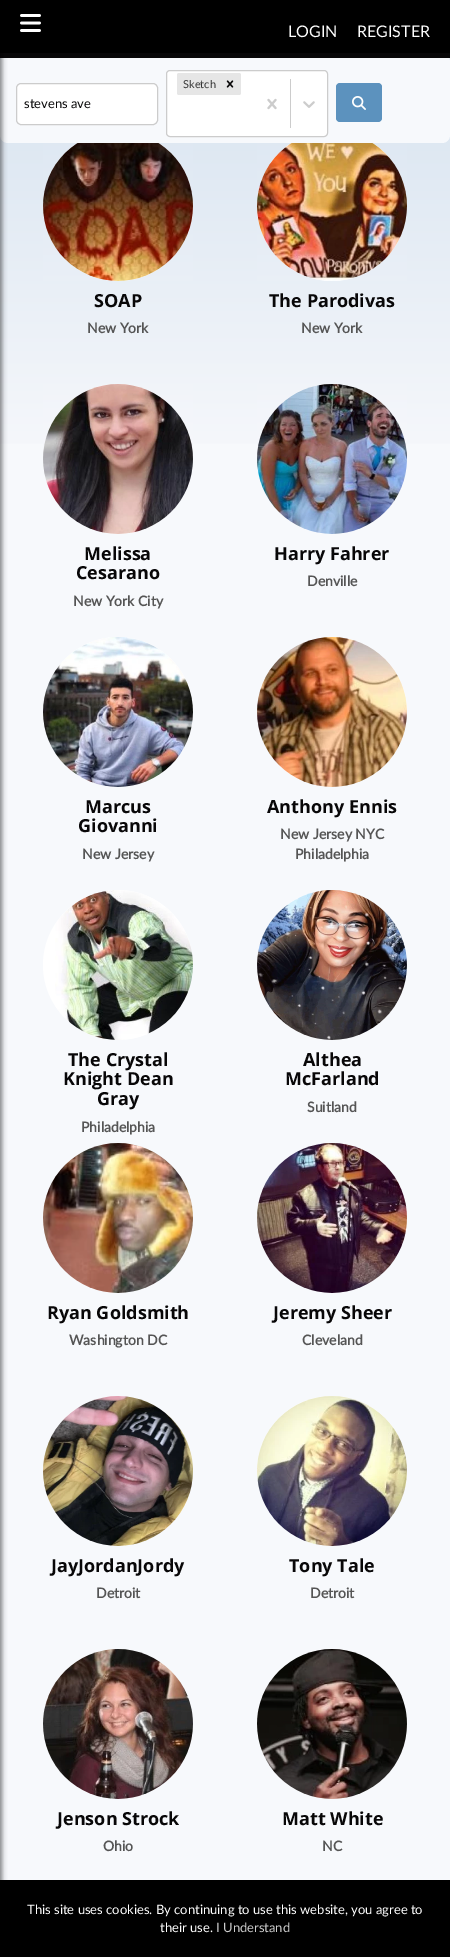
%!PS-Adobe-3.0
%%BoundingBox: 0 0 450 1957
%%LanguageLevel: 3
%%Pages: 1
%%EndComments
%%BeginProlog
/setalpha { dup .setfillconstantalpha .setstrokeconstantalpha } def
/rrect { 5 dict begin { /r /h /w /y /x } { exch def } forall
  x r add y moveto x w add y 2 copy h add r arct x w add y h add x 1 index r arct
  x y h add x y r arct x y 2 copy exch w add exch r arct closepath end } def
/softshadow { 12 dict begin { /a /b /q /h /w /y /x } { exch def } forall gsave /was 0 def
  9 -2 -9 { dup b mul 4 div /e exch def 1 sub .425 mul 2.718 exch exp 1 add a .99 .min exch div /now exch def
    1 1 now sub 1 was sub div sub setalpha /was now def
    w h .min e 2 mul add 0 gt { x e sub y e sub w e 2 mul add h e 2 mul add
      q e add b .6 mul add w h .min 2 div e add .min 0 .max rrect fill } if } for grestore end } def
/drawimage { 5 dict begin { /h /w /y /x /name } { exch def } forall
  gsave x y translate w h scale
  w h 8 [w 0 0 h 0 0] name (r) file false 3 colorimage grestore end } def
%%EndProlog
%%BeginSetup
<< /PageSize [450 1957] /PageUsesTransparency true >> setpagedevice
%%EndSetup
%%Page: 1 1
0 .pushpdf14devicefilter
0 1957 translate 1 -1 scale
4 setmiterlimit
0.969 0.976 0.988 setrgbcolor
0 0 450 1957 rectfill
gsave newpath 0 58 moveto 450 58 lineto 450 444 lineto 0 444 lineto closepath clip newpath
<< /ShadingType 2 /ColorSpace /DeviceRGB /Coords [225 55 225 455] /Extend [true true] /Function << /FunctionType 2 /Domain [0 1] /C0 [0.847 0.894 0.941] /C1 [0.965 0.969 0.984] /N 1 >> >> shfill grestore
1 setgray
newpath 118 206 75 0 360 arc closepath fill
newpath 332 206 75 0 360 arc closepath fill
0.969 0.976 0.988 setrgbcolor
0 54 450 89 8 rrect fill
0.031 0.027 0.031 setrgbcolor
0 53 450 5 rectfill
0 setgray
0 0 450 53 rectfill
-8 0 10 1957 0 2.5 0.5 softshadow
(images/1.raw) 20 14 21 18 drawimage
1 setgray
16.5 83.5 141 41 4.5 rrect gsave fill grestore
0.8 setgray
stroke
1 setgray
166.5 70.5 161 66 3.5 rrect gsave fill grestore
0.8 setgray
stroke
0.902 setgray
177 73 64 22 2 rrect fill
(images/2.raw) 226 80 8 8 drawimage
(images/3.raw) 267 98 10 12 drawimage
0.8 setgray
290 79 1 49 rectfill
(images/4.raw) 303 101 12 7 drawimage
0.361 0.573 0.745 setrgbcolor
336 83 46 39 4 rrect fill
(images/5.raw) 352 96 14 14 drawimage
(images/6.raw) 43 143 150 138 drawimage
(images/7.raw) 257 143 150 138 drawimage
1 setgray
newpath 118 459 75 0 360 arc closepath fill
(images/8.raw) 43 384 150 150 drawimage
newpath 332 459 75 0 360 arc closepath fill
(images/9.raw) 257 384 150 150 drawimage
newpath 118 712 75 0 360 arc closepath fill
(images/10.raw) 43 637 150 150 drawimage
newpath 332 712 75 0 360 arc closepath fill
(images/11.raw) 257 637 150 150 drawimage
newpath 118 965 75 0 360 arc closepath fill
(images/12.raw) 55 890 138 150 drawimage
newpath 332 965 75 0 360 arc closepath fill
(images/13.raw) 257 890 150 150 drawimage
newpath 118 1218 75 0 360 arc closepath fill
(images/14.raw) 43 1143 150 150 drawimage
newpath 332 1218 75 0 360 arc closepath fill
(images/15.raw) 257 1143 150 150 drawimage
newpath 118 1471 75 0 360 arc closepath fill
(images/16.raw) 43 1396 150 150 drawimage
newpath 332 1471 75 0 360 arc closepath fill
(images/17.raw) 257 1396 150 150 drawimage
newpath 118 1724 75 0 360 arc closepath fill
(images/18.raw) 43 1649 150 150 drawimage
newpath 332 1724 75 0 360 arc closepath fill
(images/19.raw) 257 1649 150 150 drawimage
0 setgray
0 1880 450 77 rectfill
/Lato-Regular [16 0 0 -16 0 0] selectfont
1 setgray
288 37 moveto (LOGIN) show
357 37 moveto (REGISTER) show
/Lato-Regular [13 0 0 -13 0 0] selectfont
0.031 0.027 0.031 setrgbcolor
24 108 moveto (stevens ave) show
/Lato-Regular [11 0 0 -11 0 0] selectfont
0.2 setgray
183 88 moveto (Sketch) show
/OpenSans-Bold [18 0 0 -18 0 0] selectfont
0.031 0.027 0.031 setrgbcolor
94 307 moveto (SOAP) show
/Lato-Bold [14 0 0 -14 0 0] selectfont
0.333 setgray
87 333 moveto (New York) show
/OpenSans-Bold [18 0 0 -18 0 0] selectfont
0.031 0.027 0.031 setrgbcolor
269 307 moveto (The Parodivas) show
/Lato-Bold [14 0 0 -14 0 0] selectfont
0.333 setgray
301 333 moveto (New York) show
/OpenSans-Bold [18 0 0 -18 0 0] selectfont
0.031 0.027 0.031 setrgbcolor
84 560 moveto (Melissa) show
76 579 moveto (Cesarano) show
/Lato-Bold [14 0 0 -14 0 0] selectfont
0.333 setgray
73 606 moveto (New York City) show
/OpenSans-Bold [18 0 0 -18 0 0] selectfont
0.031 0.027 0.031 setrgbcolor
274 560 moveto (Harry Fahrer) show
/Lato-Bold [14 0 0 -14 0 0] selectfont
0.333 setgray
307 586 moveto (Denville) show
/OpenSans-Bold [18 0 0 -18 0 0] selectfont
0.031 0.027 0.031 setrgbcolor
85 813 moveto (Marcus) show
78 832 moveto (Giovanni) show
/Lato-Bold [14 0 0 -14 0 0] selectfont
0.333 setgray
82 859 moveto (New Jersey) show
/OpenSans-Bold [18 0 0 -18 0 0] selectfont
0.031 0.027 0.031 setrgbcolor
267 813 moveto (Anthony Ennis) show
/Lato-Bold [14 0 0 -14 0 0] selectfont
0.333 setgray
280 839 moveto (New Jersey NYC) show
295 859 moveto (Philadelphia) show
/OpenSans-Bold [18 0 0 -18 0 0] selectfont
0.031 0.027 0.031 setrgbcolor
68 1066 moveto (The Crystal) show
63 1085 moveto (Knight Dean) show
97 1105 moveto (Gray) show
/Lato-Bold [14 0 0 -14 0 0] selectfont
0.333 setgray
81 1132 moveto (Philadelphia) show
/OpenSans-Bold [18 0 0 -18 0 0] selectfont
0.031 0.027 0.031 setrgbcolor
303 1066 moveto (Althea) show
285 1085 moveto (McFarland) show
/Lato-Bold [14 0 0 -14 0 0] selectfont
0.333 setgray
307 1112 moveto (Suitland) show
/OpenSans-Bold [18 0 0 -18 0 0] selectfont
0.031 0.027 0.031 setrgbcolor
47 1319 moveto (Ryan Goldsmith) show
/Lato-Bold [14 0 0 -14 0 0] selectfont
0.333 setgray
69 1345 moveto (Washington DC) show
/OpenSans-Bold [18 0 0 -18 0 0] selectfont
0.031 0.027 0.031 setrgbcolor
273 1319 moveto (Jeremy Sheer) show
/Lato-Bold [14 0 0 -14 0 0] selectfont
0.333 setgray
302 1345 moveto (Cleveland) show
/OpenSans-Bold [18 0 0 -18 0 0] selectfont
0.031 0.027 0.031 setrgbcolor
51 1572 moveto (JayJordanJordy) show
/Lato-Bold [14 0 0 -14 0 0] selectfont
0.333 setgray
96 1598 moveto (Detroit) show
/OpenSans-Bold [18 0 0 -18 0 0] selectfont
0.031 0.027 0.031 setrgbcolor
289 1572 moveto (Tony Tale) show
/Lato-Bold [14 0 0 -14 0 0] selectfont
0.333 setgray
310 1598 moveto (Detroit) show
/OpenSans-Bold [18 0 0 -18 0 0] selectfont
0.031 0.027 0.031 setrgbcolor
57 1825 moveto (Jenson Strock) show
/Lato-Bold [14 0 0 -14 0 0] selectfont
0.333 setgray
103 1851 moveto (Ohio) show
/OpenSans-Bold [18 0 0 -18 0 0] selectfont
0.031 0.027 0.031 setrgbcolor
282 1825 moveto (Matt White) show
/Lato-Bold [14 0 0 -14 0 0] selectfont
0.333 setgray
322 1851 moveto (NC) show
/Lato-Regular [13 0 0 -13 0 0] selectfont
1 setgray
27 1914 moveto (This site uses cookies. By continuing to use this website, you agree to) show
160 1932 moveto (their use.) show
0.8 setgray
216 1932 moveto (I Understand) show
.poppdf14devicefilter showpage
%%EOF
